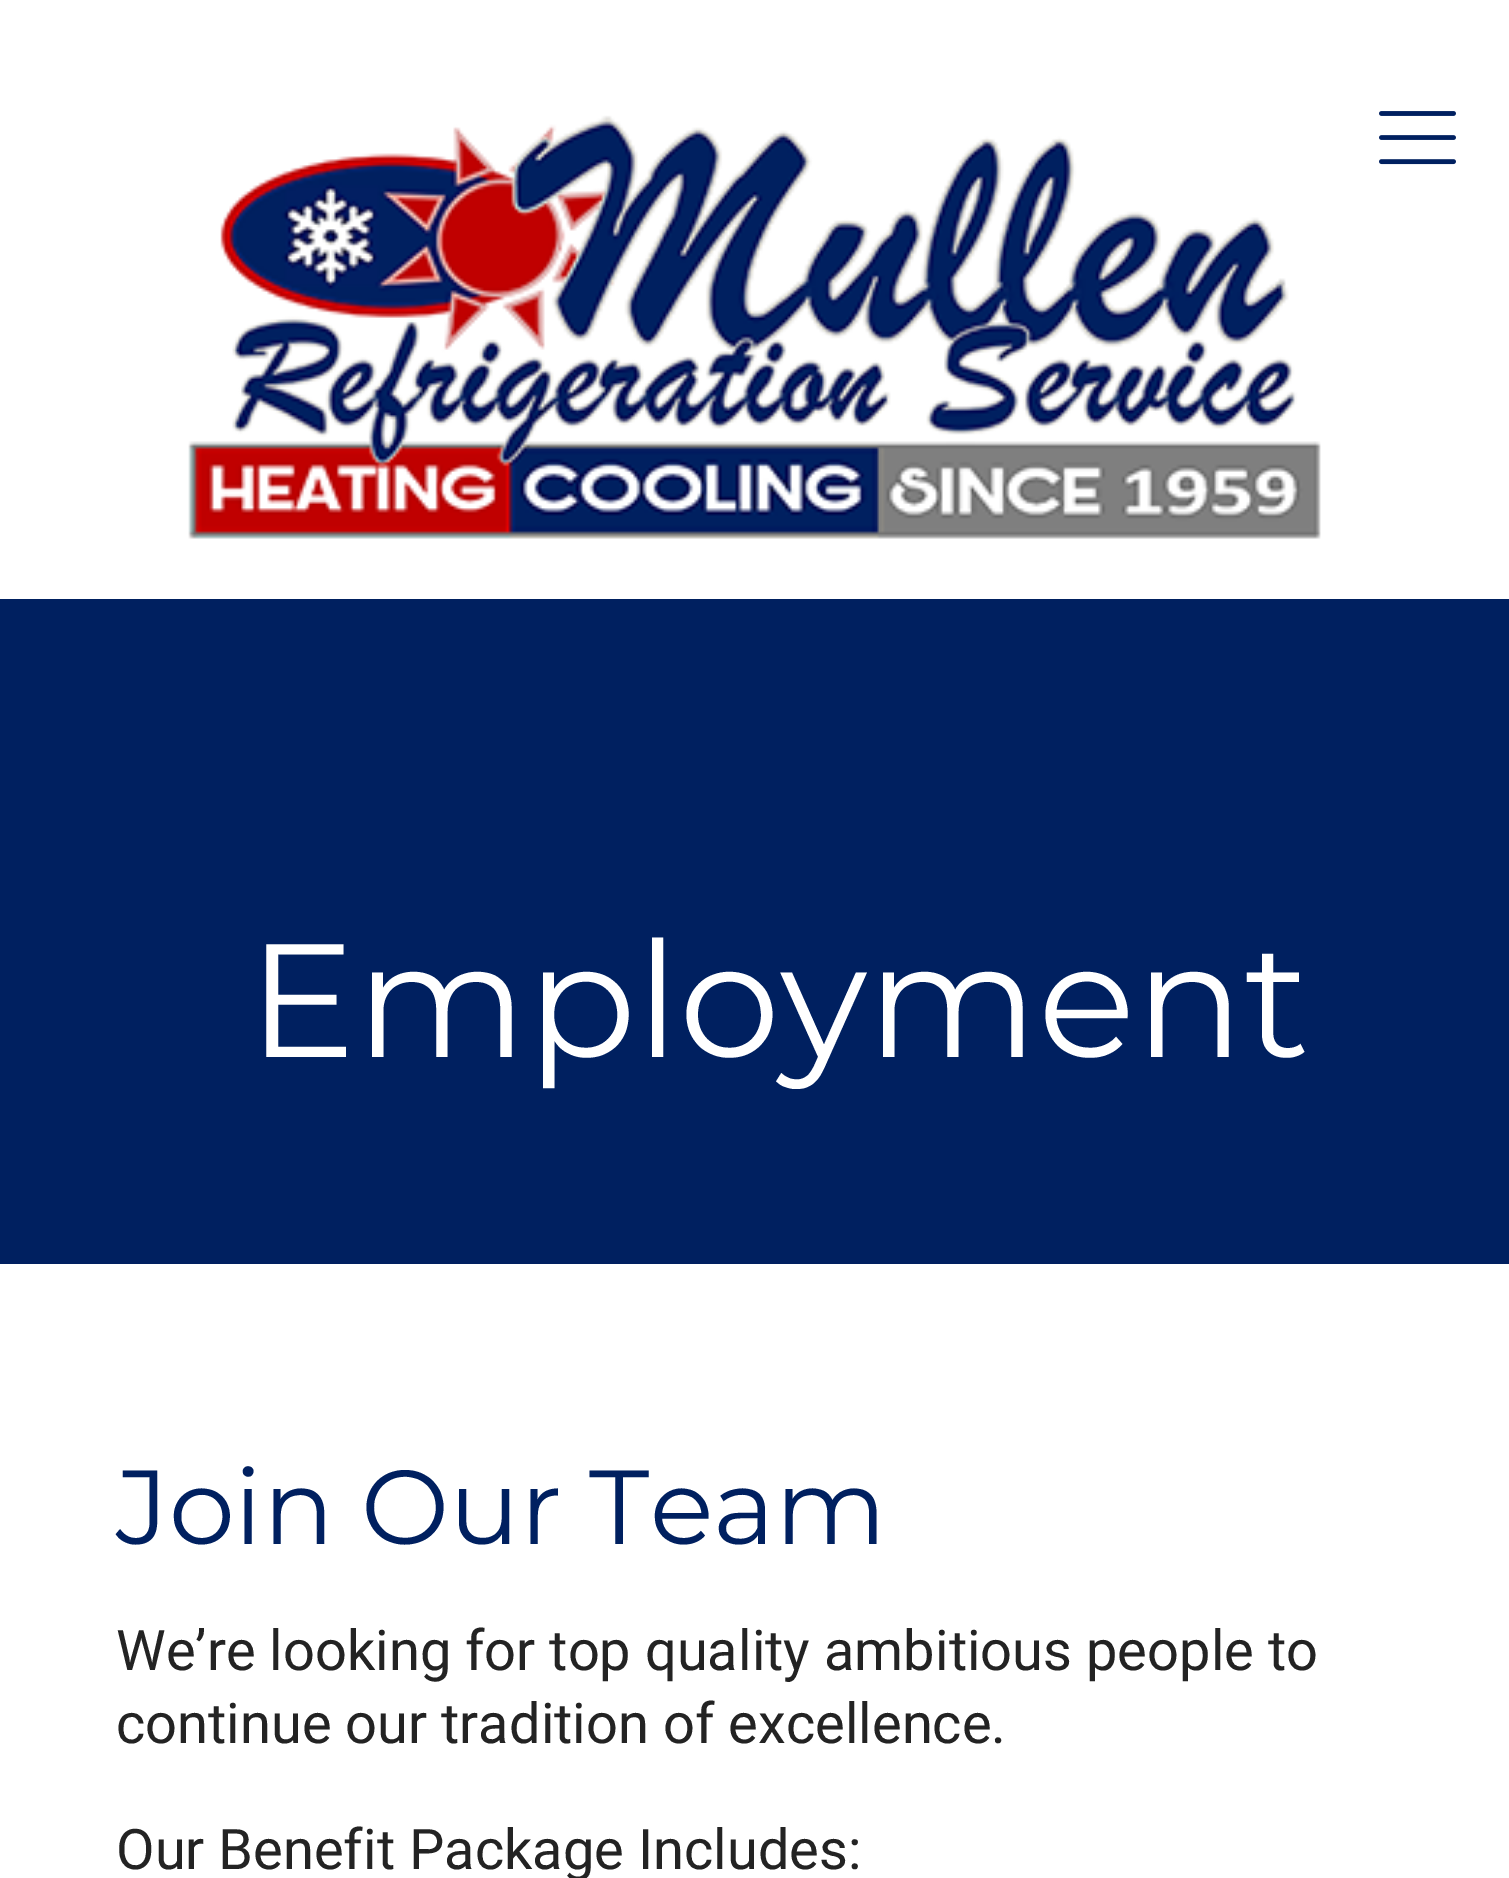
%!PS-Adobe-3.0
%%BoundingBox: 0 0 1509 1878
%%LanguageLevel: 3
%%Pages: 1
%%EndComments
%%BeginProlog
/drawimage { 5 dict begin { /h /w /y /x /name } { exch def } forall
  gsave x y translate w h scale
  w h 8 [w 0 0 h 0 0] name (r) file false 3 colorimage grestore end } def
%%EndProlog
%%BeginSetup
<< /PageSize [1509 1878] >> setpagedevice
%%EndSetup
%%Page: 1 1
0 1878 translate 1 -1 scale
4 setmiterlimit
1 setgray
0 0 1509 1878 rectfill
(images/1.raw) 188 115 1133 424 drawimage
(images/2.raw) 1379 111 77 54 drawimage
0 0.125 0.376 setrgbcolor
0 599 1509 665 rectfill
/Montserrat-Regular [161 0 0 -161 0 0] selectfont
1 setgray
248 1057 moveto (Employment) show
/Montserrat-Regular [105 0 0 -105 0 0] selectfont
0 0.125 0.376 setrgbcolor
116 1544 moveto (Join Our Team) show
/Roboto-Regular [56 0 0 -56 0 0] selectfont
0.137 setgray
116 1670 moveto (We’re looking for top quality ambitious people to) show
116 1743 moveto (continue our tradition of excellence.) show
116 1869 moveto (Our Benefit Package Includes:) show
showpage
%%EOF
